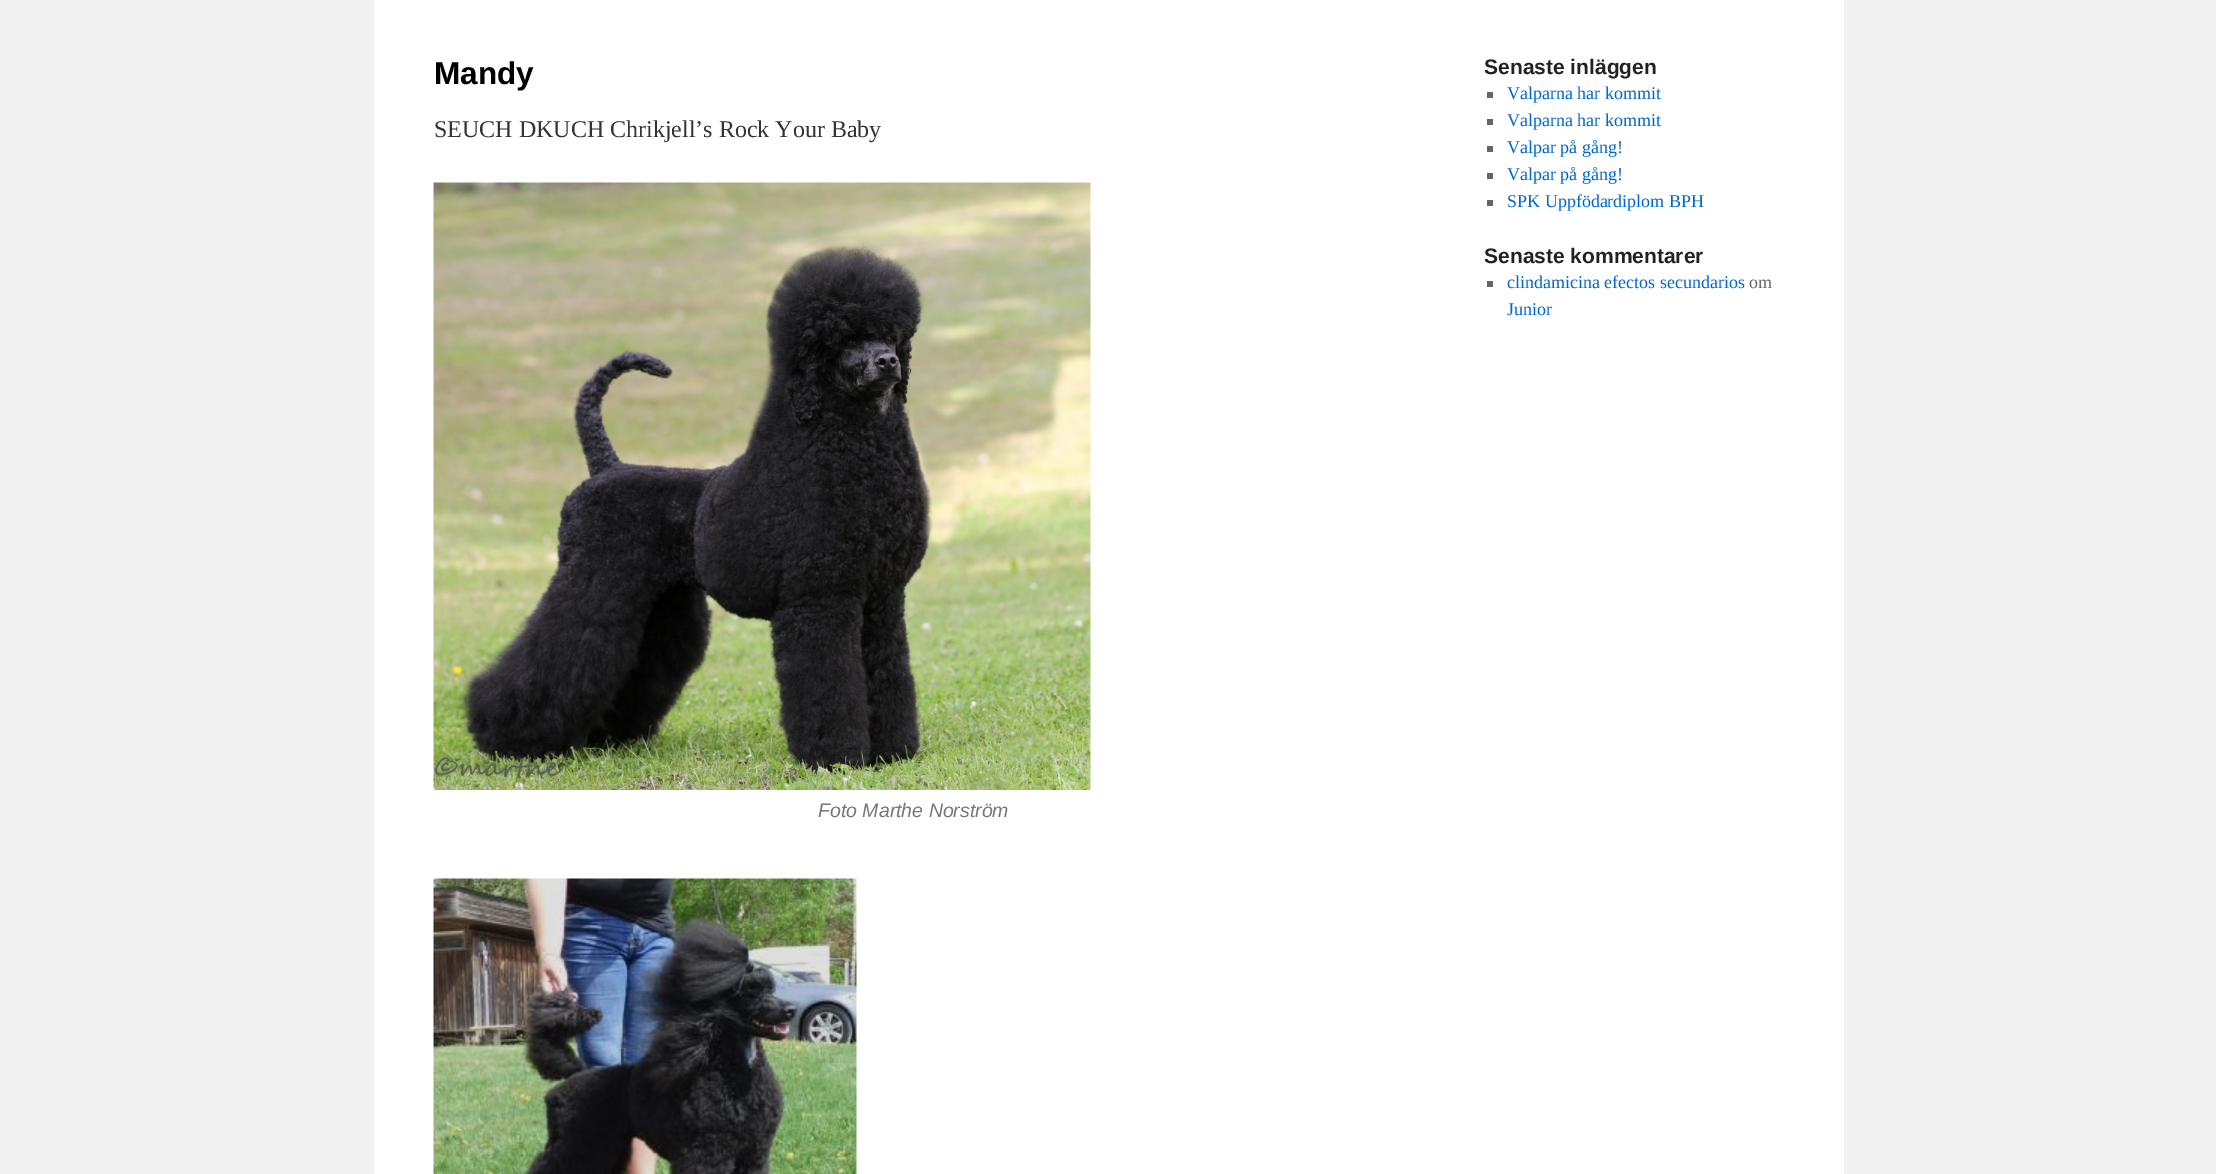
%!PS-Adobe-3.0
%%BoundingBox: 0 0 2216 1174
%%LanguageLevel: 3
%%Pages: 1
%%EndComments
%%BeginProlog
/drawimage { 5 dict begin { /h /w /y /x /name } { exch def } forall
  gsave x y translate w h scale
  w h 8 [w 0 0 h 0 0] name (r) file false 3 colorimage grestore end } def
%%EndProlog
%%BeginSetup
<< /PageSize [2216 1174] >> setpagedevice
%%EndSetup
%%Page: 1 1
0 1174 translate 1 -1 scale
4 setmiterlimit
0.945 setgray
0 0 2216 1174 rectfill
1 setgray
374 0 1470 1174 rectfill
(images/1.raw) 433 182 658 608 drawimage
(images/2.raw) 433 878 424 296 drawimage
0.4 setgray
1487 92 6 6 rectfill
1487 119 6 6 rectfill
1487 146 6 6 rectfill
1487 173 6 6 rectfill
1487 200 6 6 rectfill
1487 281 6 6 rectfill
/LiberationSans-Bold [31.5 0 0 -31.5 0 0] selectfont
0 setgray
434 84 moveto (Mandy) show
/LiberationSerif-Regular [24 0 0 -24 0 0] selectfont
0.2 setgray
434 137 moveto (SEUCH DKUCH Chrikjell’s Rock Your Baby) show
/LiberationSans-Italic [19.5 0 0 -19.5 0 0] selectfont
0.467 setgray
818 817 moveto (Foto Marthe Norström) show
/LiberationSans-Bold [21 0 0 -21 0 0] selectfont
0.133 setgray
1484 74 moveto (Senaste inläggen) show
/LiberationSerif-Regular [18 0 0 -18 0 0] selectfont
0 0.4 0.8 setrgbcolor
1507 99 moveto (Valparna har kommit) show
1507 126 moveto (Valparna har kommit) show
1507 153 moveto (Valpar på gång!) show
1507 180 moveto (Valpar på gång!) show
1507 207 moveto (SPK Uppfödardiplom BPH) show
/LiberationSans-Bold [21 0 0 -21 0 0] selectfont
0.133 setgray
1484 263 moveto (Senaste kommentarer) show
/LiberationSerif-Regular [18 0 0 -18 0 0] selectfont
0 0.4 0.8 setrgbcolor
1507 288 moveto (clindamicina efectos secundarios) show
0.4 setgray
1749 288 moveto (om) show
0 0.4 0.8 setrgbcolor
1507 315 moveto (Junior) show
showpage
%%EOF
